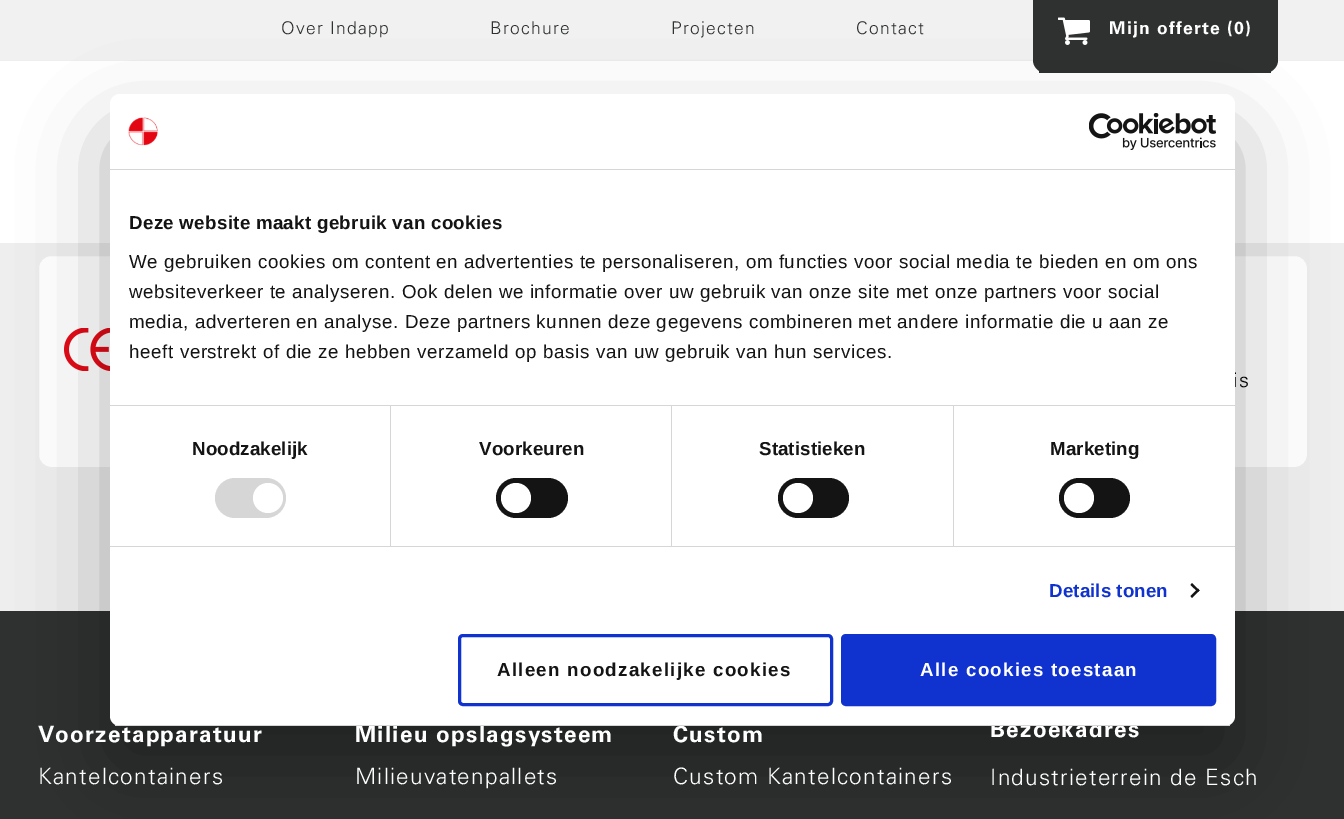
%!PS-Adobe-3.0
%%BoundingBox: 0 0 1344 819
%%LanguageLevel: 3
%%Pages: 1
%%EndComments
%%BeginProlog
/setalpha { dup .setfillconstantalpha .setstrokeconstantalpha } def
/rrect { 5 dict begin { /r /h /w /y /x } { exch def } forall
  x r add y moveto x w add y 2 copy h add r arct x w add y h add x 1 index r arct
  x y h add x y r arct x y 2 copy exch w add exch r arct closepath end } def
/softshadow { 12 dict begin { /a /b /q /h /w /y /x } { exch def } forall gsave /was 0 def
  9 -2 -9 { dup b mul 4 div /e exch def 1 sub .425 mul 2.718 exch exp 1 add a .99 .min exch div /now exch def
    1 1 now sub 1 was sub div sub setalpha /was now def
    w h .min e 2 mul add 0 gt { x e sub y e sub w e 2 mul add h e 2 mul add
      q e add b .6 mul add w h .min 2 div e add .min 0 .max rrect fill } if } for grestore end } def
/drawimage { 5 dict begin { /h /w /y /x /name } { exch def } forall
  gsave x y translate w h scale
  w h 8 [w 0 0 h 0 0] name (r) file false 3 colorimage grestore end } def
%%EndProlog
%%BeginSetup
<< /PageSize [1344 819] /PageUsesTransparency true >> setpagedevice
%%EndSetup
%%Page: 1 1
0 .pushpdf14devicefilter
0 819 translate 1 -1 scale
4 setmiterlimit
0.933 setgray
0 0 1344 819 rectfill
0.945 setgray
0 0 1344 60 rectfill
1 setgray
0 61 1344 182 rectfill
0.184 0.192 0.192 setrgbcolor
newpath 1033 0 moveto 1278 0 lineto 1278 60 lineto 1278 67 1272 73 1265 73 curveto 1046 73 lineto 1039 73 1033 67 1033 60 curveto closepath fill
1039 71 232 2 rectfill
(images/1.raw) 1058 17 32 28 drawimage
1 setgray
38.5 255.5 400 212 12.5 rrect gsave fill grestore
0.933 setgray
stroke
(images/2.raw) 64 328 46 43 drawimage
1 setgray
906.5 255.5 401 212 12.5 rrect gsave fill grestore
0.933 setgray
stroke
0.184 0.192 0.192 setrgbcolor
0 611 1344 208 rectfill
0 setgray
110 134 1125 632 10 42.5 0.3 softshadow
/Univers-Light [17.5 0 0 -17.5 0 0] selectfont
0.184 0.192 0.192 setrgbcolor
281 34 moveto 1.25 0 (Over Indapp) ashow
490 34 moveto 1.25 0 (Brochure) ashow
671 34 moveto 1.25 0 (Projecten) ashow
856 34 moveto 1.25 0 (Contact) ashow
/Univers-Bold [17.5 0 0 -17.5 0 0] selectfont
1 setgray
1109 34 moveto 1.25 0 (Mijn offerte \(0\)) ashow
/Univers-Light [20 0 0 -20 0 0] selectfont
0 setgray
1233 387 moveto 1.25 0 (is) ashow
/Univers-Bold [22.5 0 0 -22.5 0 0] selectfont
1 setgray
38 742 moveto 1.25 0 (Voorzetapparatuur) ashow
/Univers-Light [22.5 0 0 -22.5 0 0] selectfont
38 784 moveto 1.25 0 (Kantelcontainers) ashow
/Univers-Bold [22.5 0 0 -22.5 0 0] selectfont
355 742 moveto 1.25 0 (Milieu opslagsysteem) ashow
/Univers-Light [22.5 0 0 -22.5 0 0] selectfont
355 784 moveto 1.25 0 (Milieuvatenpallets) ashow
/Univers-Bold [22.5 0 0 -22.5 0 0] selectfont
673 742 moveto 1.25 0 (Custom) ashow
/Univers-Light [22.5 0 0 -22.5 0 0] selectfont
673 784 moveto 1.25 0 (Custom Kantelcontainers) ashow
/Univers-Bold [22.5 0 0 -22.5 0 0] selectfont
990 737 moveto 1.25 0 (Bezoekadres) ashow
/Univers-Light [22.5 0 0 -22.5 0 0] selectfont
990 785 moveto 1.25 0 (Industrieterrein de Esch) ashow
110 94 1125 632 10 rrect fill
0.839 setgray
110 169 1125 1 rectfill
(images/3.raw) 128 117 30 29 drawimage
(images/4.raw) 1089 113 127 37 drawimage
110 405 1125 1 rectfill
/LiberationSans-Bold [18.75 0 0 -18.75 0 0] selectfont
0.078 setgray
129 229 moveto 0.3 0 (Deze website maakt gebruik van cookies) ashow
/LiberationSans-Regular [18.75 0 0 -18.75 0 0] selectfont
129 268 moveto 0.62 0 (We gebruiken cookies om content en advertenties te personaliseren, om functies voor social media te bieden en om ons) ashow
129 298 moveto 0.62 0 (websiteverkeer te analyseren. Ook delen we informatie over uw gebruik van onze site met onze partners voor social) ashow
129 328 moveto 0.62 0 (media, adverteren en analyse. Deze partners kunnen deze gegevens combineren met andere informatie die u aan ze) ashow
129 358 moveto 0.62 0 (heeft verstrekt of die ze hebben verzameld op basis van uw gebruik van hun services.) ashow
0.839 setgray
110 546 1125 1 rectfill
390 406 1 140 rectfill
/LiberationSans-Bold [18.75 0 0 -18.75 0 0] selectfont
0.078 setgray
192 455 moveto 0.1 0 (Noodzakelijk) ashow
0.839 setgray
215 478 71 40 20 rrect fill
1 setgray
newpath 268 498 15 0 360 arc closepath fill
0.839 setgray
671 406 1 140 rectfill
0.078 setgray
479 455 moveto 0.1 0 (Voorkeuren) ashow
496 478 72 40 20 rrect fill
1 setgray
newpath 516 498 15 0 360 arc closepath fill
0.839 setgray
953 406 1 140 rectfill
0.078 setgray
759 455 moveto 0.1 0 (Statistieken) ashow
778 478 71 40 20 rrect fill
1 setgray
newpath 798 498 15 0 360 arc closepath fill
0.078 setgray
1050 455 moveto 0.1 0 (Marketing) ashow
1059 478 71 40 20 rrect fill
1 setgray
newpath 1079 498 15 0 360 arc closepath fill
0.063 0.196 0.812 setrgbcolor
1049 597 moveto 0.1 0 (Details tonen) ashow
0.078 setgray
newpath 1192 583 moveto 1199.5 590.5 lineto 1198 592 lineto 1190.5 585 lineto closepath fill
newpath 1198 588.5 moveto 1199.5 590.5 lineto 1192 598 lineto 1190.5 596 lineto closepath fill
gsave
110 94 1125 632 10 rrect clip newpath
0.839 setgray
110 725 1125 1 rectfill
grestore
0.063 0.196 0.812 setrgbcolor
3 setlinewidth
459.5 635.5 372 69 3.5 rrect stroke
0.078 setgray
497 676 moveto 1.25 0 (Alleen noodzakelijke cookies) ashow
0.063 0.196 0.812 setrgbcolor
842.5 635.5 372 69 3.5 rrect gsave fill grestore
stroke
1 setgray
920 676 moveto 1.25 0 (Alle cookies toestaan) ashow
.poppdf14devicefilter showpage
%%EOF
